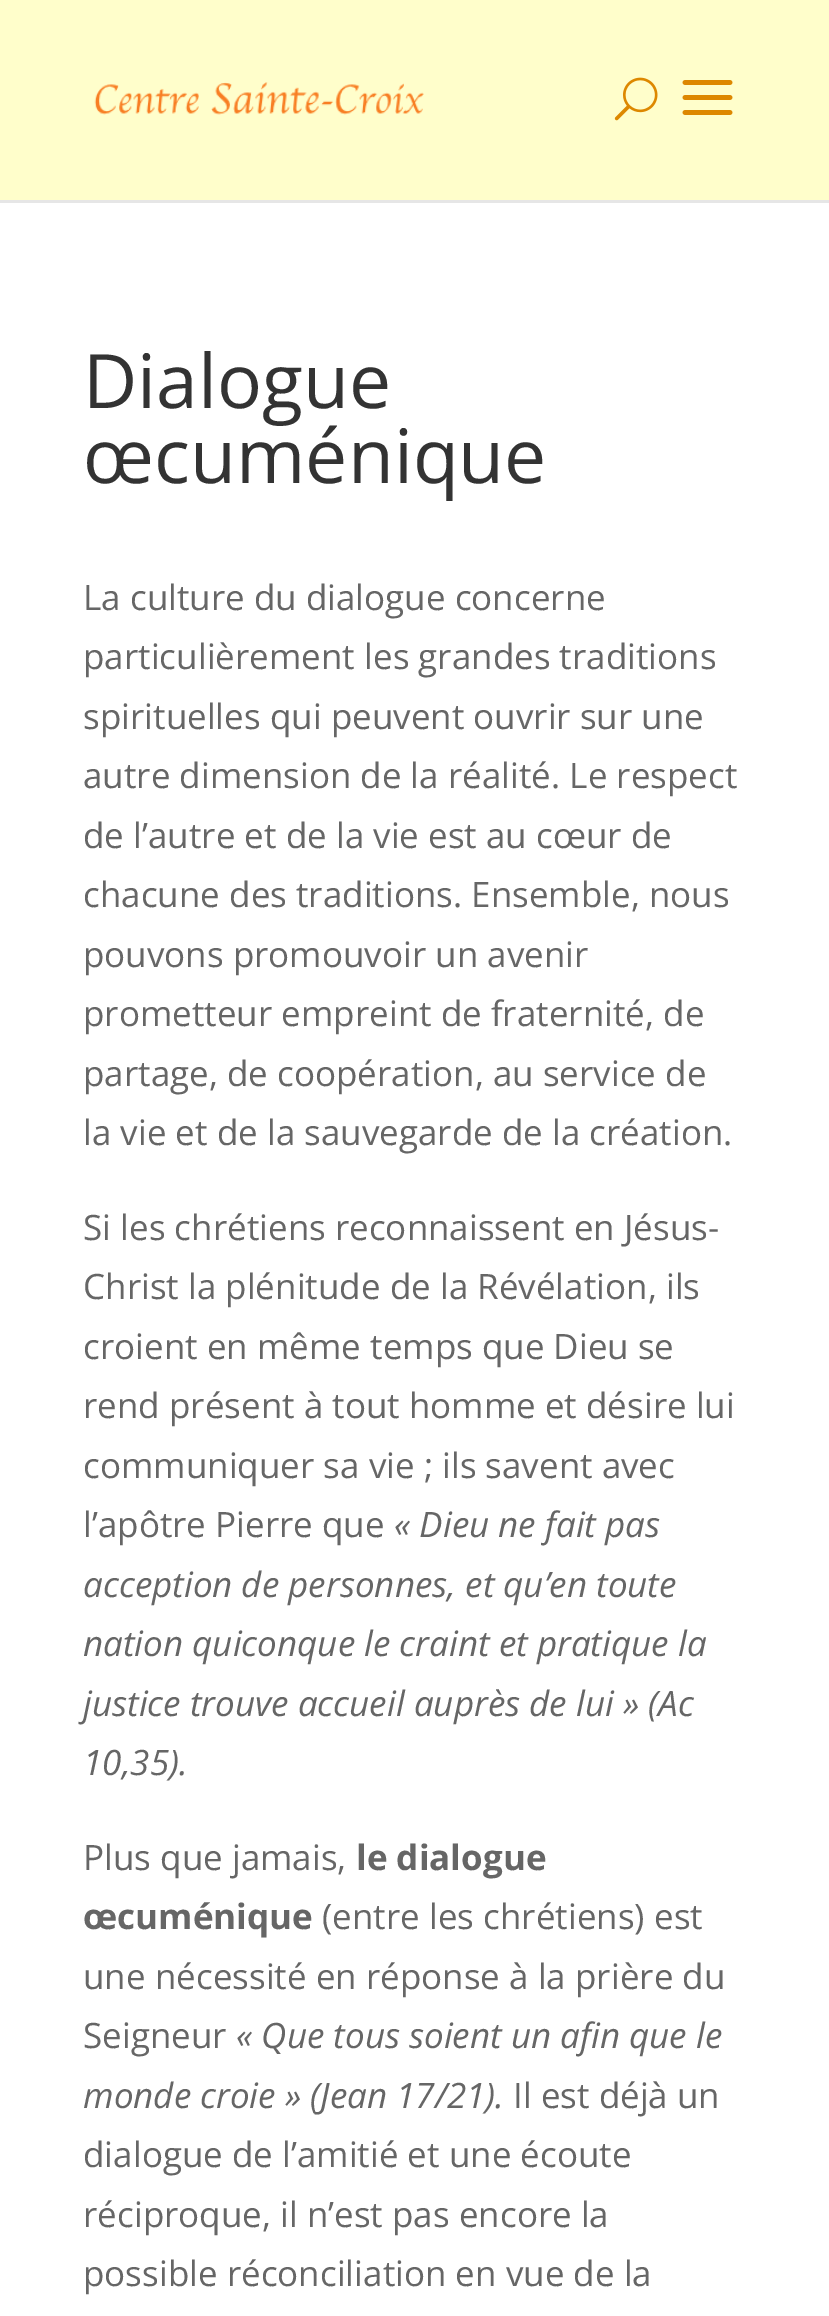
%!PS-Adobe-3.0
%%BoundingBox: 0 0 829 2316
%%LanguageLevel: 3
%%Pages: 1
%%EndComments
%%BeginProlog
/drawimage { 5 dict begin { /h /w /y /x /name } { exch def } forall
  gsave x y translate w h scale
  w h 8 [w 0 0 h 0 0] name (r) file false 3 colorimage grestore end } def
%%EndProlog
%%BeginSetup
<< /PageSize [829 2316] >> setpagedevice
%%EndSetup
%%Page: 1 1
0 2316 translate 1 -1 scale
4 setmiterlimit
1 setgray
0 0 829 2316 rectfill
0.902 setgray
0 200 829 3 rectfill
1 0.996 0.796 setrgbcolor
0 0 829 200 rectfill
(images/1.raw) 94 82 330 33 drawimage
(images/2.raw) 614 77 44 44 drawimage
(images/3.raw) 682 80 51 35 drawimage
/OpenSans-Regular [75 0 0 -75 0 0] selectfont
0.2 setgray
83 408 moveto (Dialogue) show
83 483 moveto (œcuménique) show
/OpenSans-Regular [35 0 0 -35 0 0] selectfont
0.4 setgray
83 610 moveto (La culture du dialogue concerne) show
83 669 moveto (particulièrement les grandes traditions) show
83 729 moveto (spirituelles qui peuvent ouvrir sur une) show
83 788 moveto (autre dimension de la réalité. Le respect) show
83 848 moveto (de l’autre et de la vie est au cœur de) show
83 907 moveto (chacune des traditions. Ensemble, nous) show
83 967 moveto (pouvons promouvoir un avenir) show
83 1026 moveto (prometteur empreint de fraternité, de) show
83 1086 moveto (partage, de coopération, au service de) show
83 1145 moveto (la vie et de la sauvegarde de la création.) show
83 1240 moveto (Si les chrétiens reconnaissent en Jésus-) show
83 1299 moveto (Christ la plénitude de la Révélation, ils) show
83 1359 moveto (croient en même temps que Dieu se) show
83 1418 moveto (rend présent à tout homme et désire lui) show
83 1478 moveto (communiquer sa vie ; ils savent avec) show
83 1537 moveto (l’apôtre Pierre que) show
/OpenSans-Italic [35 0 0 -35 0 0] selectfont
394 1537 moveto (« Dieu ne fait pas) show
83 1597 moveto (acception de personnes, et qu’en toute) show
83 1656 moveto (nation quiconque le craint et pratique la) show
83 1716 moveto (justice trouve accueil auprès de lui » \(Ac) show
83 1775 moveto (10,35\).) show
/OpenSans-Regular [35 0 0 -35 0 0] selectfont
83 1870 moveto (Plus que jamais,) show
/OpenSans-Bold [35 0 0 -35 0 0] selectfont
356 1870 moveto (le dialogue) show
83 1929 moveto (œcuménique) show
/OpenSans-Regular [35 0 0 -35 0 0] selectfont
322 1929 moveto (\(entre les chrétiens\) est) show
83 1989 moveto (une nécessité en réponse à la prière du) show
83 2048 moveto (Seigneur) show
/OpenSans-Italic [35 0 0 -35 0 0] selectfont
236 2048 moveto (« Que tous soient un afin que le) show
83 2108 moveto (monde croie » \(Jean 17/21\).) show
/OpenSans-Regular [35 0 0 -35 0 0] selectfont
513 2108 moveto (Il est déjà un) show
83 2167 moveto (dialogue de l’amitié et une écoute) show
83 2227 moveto (réciproque, il n’est pas encore la) show
83 2286 moveto (possible réconciliation en vue de la) show
showpage
%%EOF
